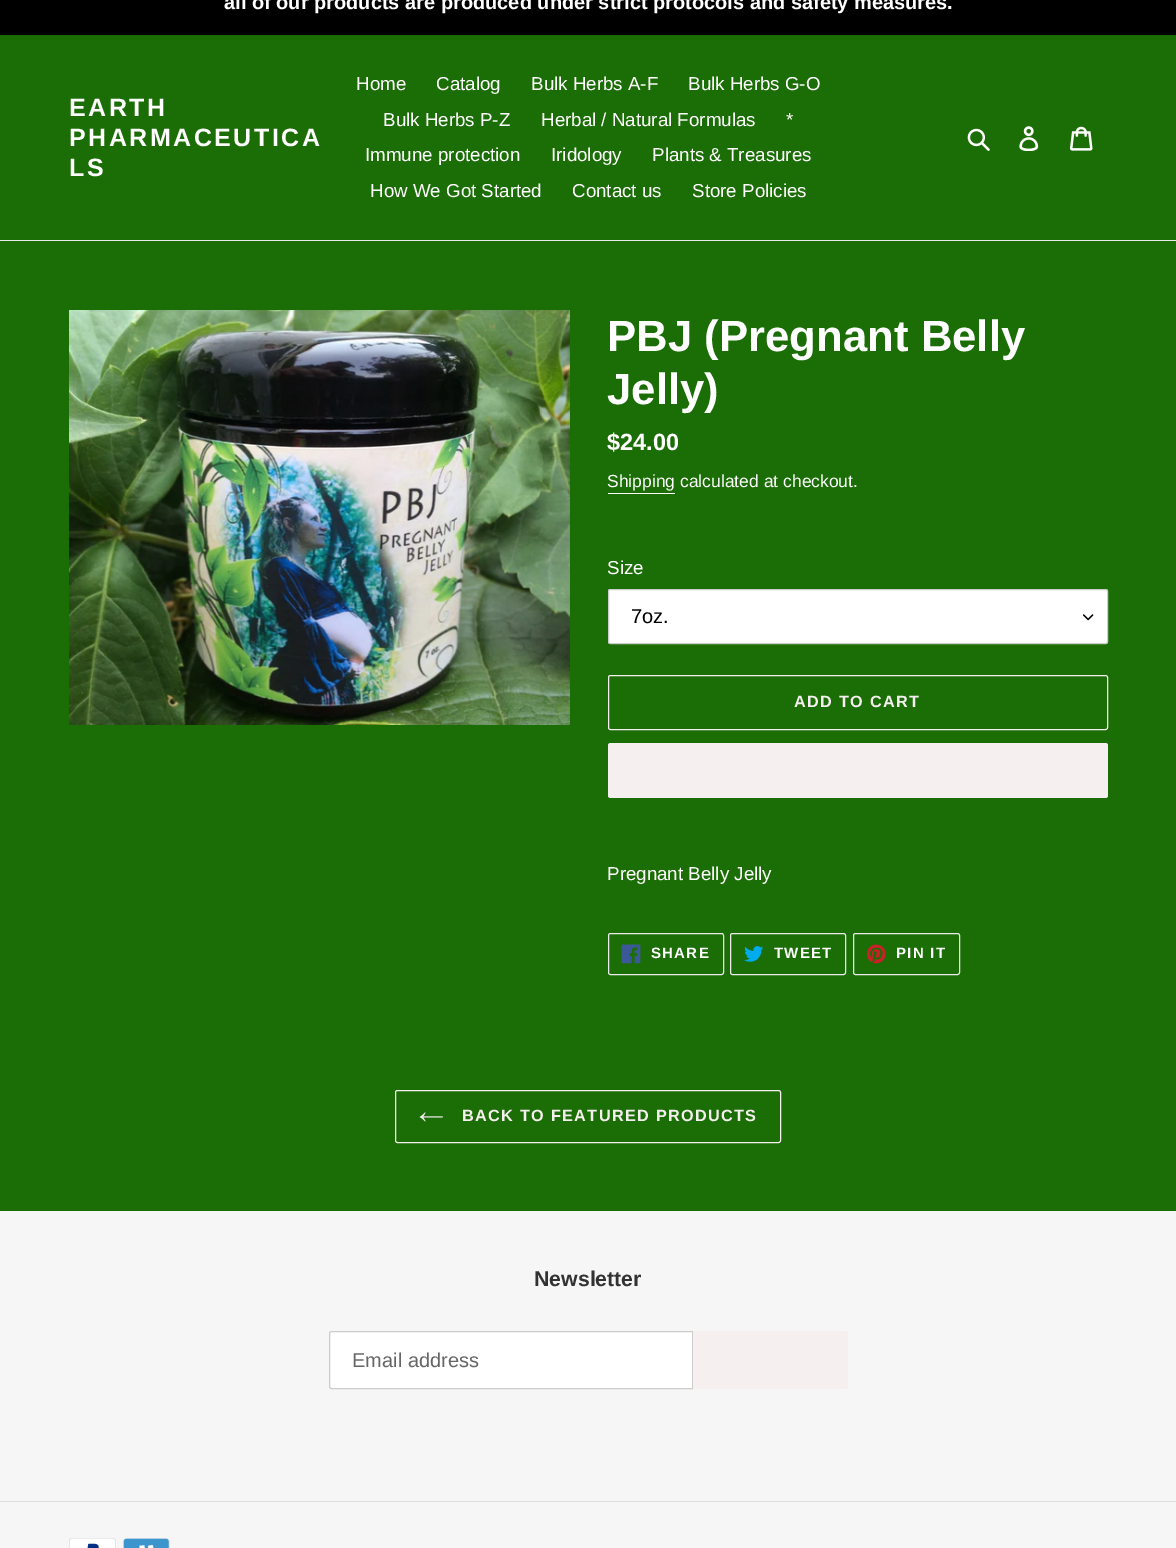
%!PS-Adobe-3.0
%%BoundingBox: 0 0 1176 1548
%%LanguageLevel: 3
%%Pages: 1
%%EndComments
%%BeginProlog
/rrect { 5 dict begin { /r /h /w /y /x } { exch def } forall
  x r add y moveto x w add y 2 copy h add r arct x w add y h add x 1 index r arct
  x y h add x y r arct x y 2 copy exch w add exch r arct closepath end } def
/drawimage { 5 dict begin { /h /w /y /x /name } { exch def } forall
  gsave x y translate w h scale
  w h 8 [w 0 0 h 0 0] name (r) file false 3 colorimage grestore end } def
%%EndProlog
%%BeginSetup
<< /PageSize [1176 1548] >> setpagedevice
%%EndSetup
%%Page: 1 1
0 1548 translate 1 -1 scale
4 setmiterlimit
0.106 0.427 0.024 setrgbcolor
0 0 1176 1548 rectfill
0 setgray
0 0 1176 35 rectfill
0.922 setgray
0 240 1176 1 rectfill
(images/1.raw) 967 128 23 23 drawimage
(images/2.raw) 1019 126 20 25 drawimage
(images/3.raw) 1070 126 23 25 drawimage
(images/4.raw) 69 310 501 415 drawimage
1 setgray
608 493 67 1 rectfill
608 589 500 55 2.5 rrect fill
(images/5.raw) 1083 614 11 7 drawimage
0.8 setgray
608.5 589.5 499 54 2 rrect stroke
0.961 0.937 0.937 setrgbcolor
608.5 675.5 499 54 2 rrect stroke
608 743 500 55 2.5 rrect fill
0.922 setgray
608.5 933.5 115 41 2 rrect stroke
(images/6.raw) 621 944 20 20 drawimage
730.5 933.5 115 41 2 rrect stroke
(images/7.raw) 744 946 20 16 drawimage
853.5 933.5 106 41 2 rrect stroke
(images/8.raw) 866 944 20 20 drawimage
0.961 0.937 0.937 setrgbcolor
395.5 1090.5 385 52 2 rrect stroke
(images/9.raw) 419 1112 24 10 drawimage
0.965 setgray
0 1211 1176 337 rectfill
1 setgray
newpath 331.5 1331.5 moveto 692.5 1331.5 lineto 692.5 1388.5 lineto 331.5 1388.5 lineto 330.5 1388.5 329.5 1387.5 329.5 1386.5 curveto 329.5 1333.5 lineto 329.5 1332.5 330.5 1331.5 331.5 1331.5 curveto closepath gsave fill grestore
0.8 setgray
stroke
0.961 0.937 0.937 setrgbcolor
newpath 693 1331 moveto 845.5 1331 lineto 847 1331 848 1332 848 1333.5 curveto 848 1386.5 lineto 848 1388 847 1389 845.5 1389 curveto 693 1389 lineto closepath fill
0.867 setgray
0 1501 1176 1 rectfill
(images/10.raw) 69 1538 47 10 drawimage
(images/11.raw) 123 1538 47 10 drawimage
/LiberationSans-Bold [20 0 0 -20 0 0] selectfont
1 setgray
224 9 moveto (all of our products are produced under strict protocols and safety measures.) show
/LiberationSans-Bold [25 0 0 -25 0 0] selectfont
69 116 moveto 2.5 0 (EARTH) ashow
69 146 moveto 2.5 0 (PHARMACEUTICA) ashow
69 176 moveto 2.5 0 (LS) ashow
/LiberationSans-Regular [18.75 0 0 -18.75 0 0] selectfont
356 90 moveto (Home) show
436 90 moveto (Catalog) show
531 90 moveto (Bulk Herbs A-F) show
688 90 moveto (Bulk Herbs G-O) show
383 126 moveto (Bulk Herbs P-Z) show
541 126 moveto (Herbal / Natural Formulas) show
786 126 moveto (*) show
365 161 moveto (Immune protection) show
551 161 moveto (Iridology) show
652 161 moveto (Plants & Treasures) show
370 197 moveto (How We Got Started) show
572 197 moveto (Contact us) show
692 197 moveto (Store Policies) show
/LiberationSans-Bold [43.75 0 0 -43.75 0 0] selectfont
607 351 moveto (PBJ \(Pregnant Belly) show
607 404 moveto (Jelly\)) show
/LiberationSans-Bold [23.5 0 0 -23.5 0 0] selectfont
607 450 moveto ($24.00) show
/LiberationSans-Regular [17.5 0 0 -17.5 0 0] selectfont
607 487 moveto (Shipping calculated at checkout.) show
/LiberationSans-Regular [18.75 0 0 -18.75 0 0] selectfont
607 574 moveto (Size) show
/LiberationSans-Regular [20 0 0 -20 0 0] selectfont
0 setgray
631 623 moveto (7oz.) show
/LiberationSans-Bold [16.25 0 0 -16.25 0 0] selectfont
0.961 0.937 0.937 setrgbcolor
794 707 moveto 1.3 0 (ADD TO CART) ashow
/LiberationSans-Regular [18.75 0 0 -18.75 0 0] selectfont
1 setgray
607 880 moveto (Pregnant Belly Jelly) show
/LiberationSans-Bold [15 0 0 -15 0 0] selectfont
651 958 moveto 1.25 0 (SHARE) ashow
774 958 moveto 1.25 0 (TWEET) ashow
896 958 moveto 1.25 0 (PIN IT) ashow
/LiberationSans-Bold [16.25 0 0 -16.25 0 0] selectfont
0.961 0.937 0.937 setrgbcolor
462 1121 moveto 1.3 0 (BACK TO FEATURED PRODUCTS) ashow
/LiberationSans-Bold [21.25 0 0 -21.25 0 0] selectfont
0.2 0.196 0.196 setrgbcolor
534 1286 moveto (Newsletter) show
/LiberationSans-Regular [20 0 0 -20 0 0] selectfont
0.4 setgray
352 1367 moveto (Email address) show
showpage
%%EOF
